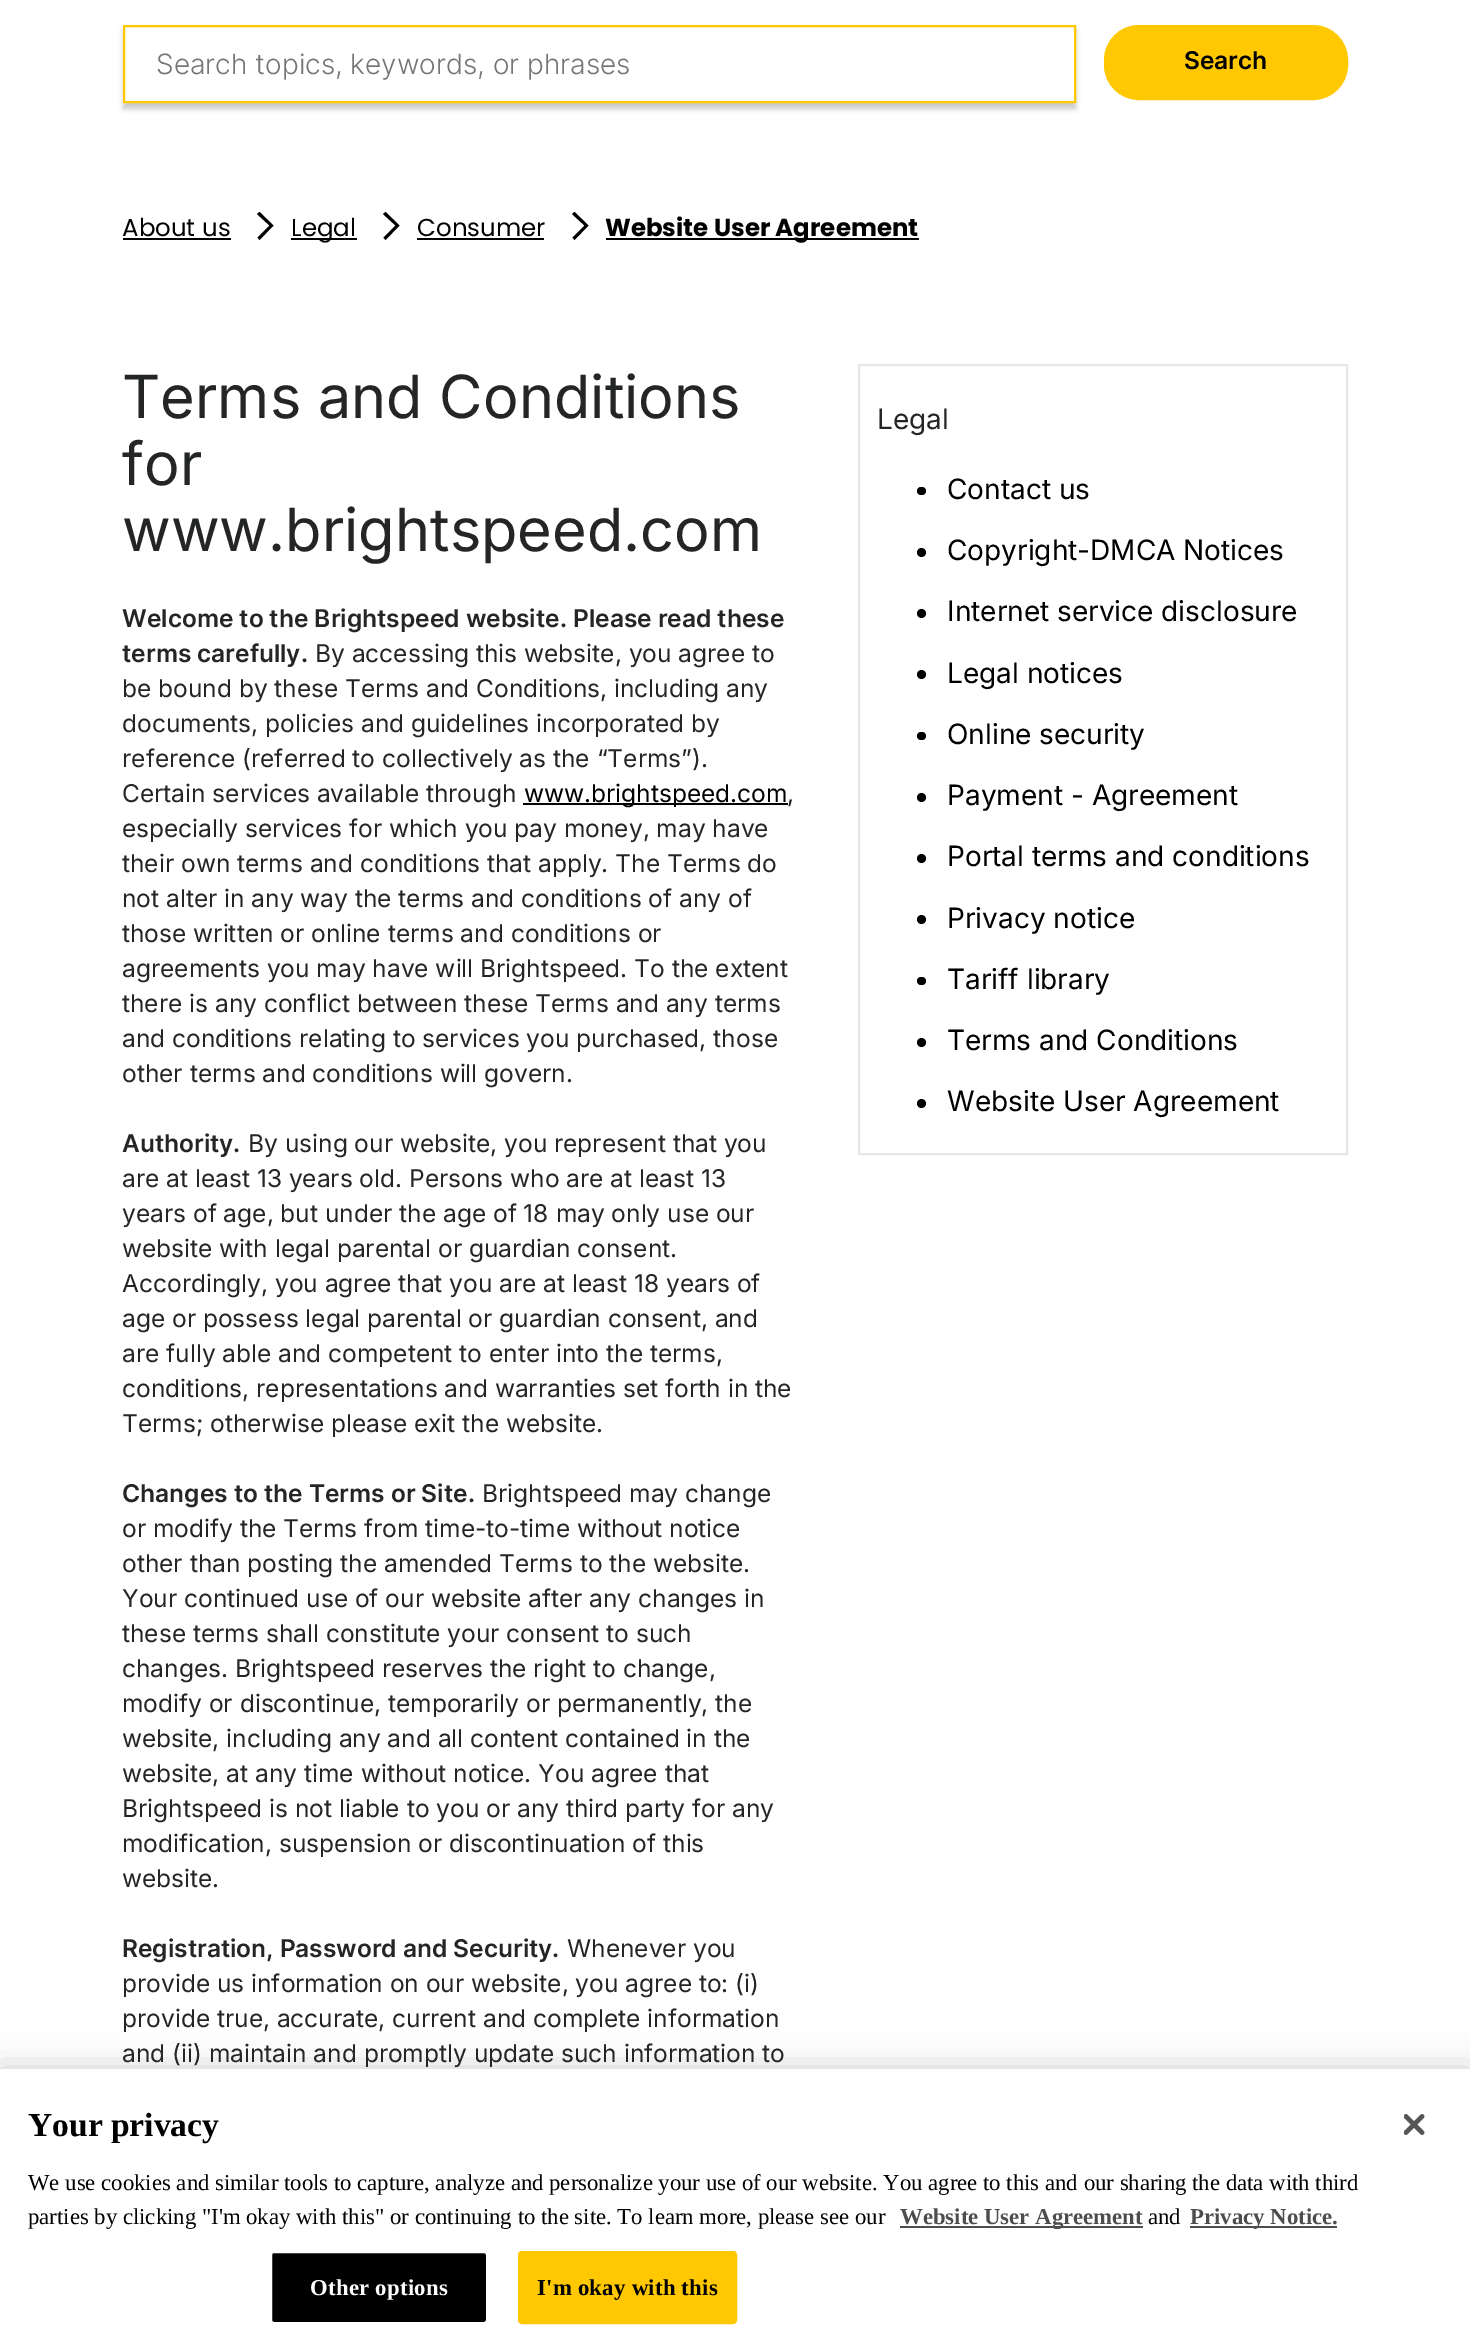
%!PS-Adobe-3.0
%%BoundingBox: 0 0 1470 2352
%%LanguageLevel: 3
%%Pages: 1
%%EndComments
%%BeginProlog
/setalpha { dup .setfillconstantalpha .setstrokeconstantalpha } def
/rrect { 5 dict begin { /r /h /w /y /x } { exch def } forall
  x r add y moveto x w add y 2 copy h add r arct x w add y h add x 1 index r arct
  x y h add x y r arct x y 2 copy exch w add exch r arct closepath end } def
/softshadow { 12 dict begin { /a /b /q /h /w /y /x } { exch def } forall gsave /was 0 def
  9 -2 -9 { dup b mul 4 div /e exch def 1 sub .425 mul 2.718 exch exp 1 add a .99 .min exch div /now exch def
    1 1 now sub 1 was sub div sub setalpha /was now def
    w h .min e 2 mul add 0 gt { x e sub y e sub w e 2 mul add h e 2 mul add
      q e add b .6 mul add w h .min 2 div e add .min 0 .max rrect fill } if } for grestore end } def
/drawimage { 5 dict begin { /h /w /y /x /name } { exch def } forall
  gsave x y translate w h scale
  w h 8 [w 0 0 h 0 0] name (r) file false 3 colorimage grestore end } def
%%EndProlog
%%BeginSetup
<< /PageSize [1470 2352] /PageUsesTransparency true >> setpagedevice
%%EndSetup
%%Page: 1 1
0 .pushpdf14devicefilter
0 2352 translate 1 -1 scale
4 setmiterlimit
1 setgray
0 0 1470 2352 rectfill
gsave
newpath 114 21 moveto 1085 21 lineto 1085 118 lineto 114 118 lineto closepath 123 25 moveto 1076 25 lineto 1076 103 lineto 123 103 lineto closepath eoclip newpath
0 setgray
123 30 953 79 0 2.5 0.2 softshadow
grestore
1 0.784 0 setrgbcolor
2 setlinewidth
124 26 951 76 rectstroke
1105 26 242 73 34 rrect gsave fill grestore
stroke
0 setgray
123 238 108 2 rectfill
newpath 269.5 225.5 moveto 257.5 237.5 lineto 259.5 240 lineto 273.5 225.5 lineto 259.5 212 lineto 257 214 lineto closepath fill
291 238 66 2 rectfill
newpath 395.5 225.5 moveto 383.5 237.5 lineto 385.5 240 lineto 399.5 225.5 lineto 385.5 212 lineto 383 214 lineto closepath fill
417 238 127 2 rectfill
newpath 584.5 225.5 moveto 572.5 237.5 lineto 574.5 240 lineto 588.5 225.5 lineto 574.5 212 lineto 572 214 lineto closepath fill
606 238 313 2 rectfill
523 803 265 2 rectfill
0.902 0.906 0.91 setrgbcolor
859 365 488 789 rectstroke
0 setgray
917 487 9 8 4 rrect fill
newpath 921.5 552.5 4.5 0 360 arc closepath fill
newpath 921.5 613.5 4.5 0 360 arc closepath fill
newpath 921.5 674.5 4.5 0 360 arc closepath fill
917 732 9 8 4 rrect fill
newpath 921.5 797.5 4.5 0 360 arc closepath fill
newpath 921.5 858.5 4.5 0 360 arc closepath fill
newpath 921.5 919.5 4.5 0 360 arc closepath fill
917 977 9 8 4 rrect fill
newpath 921.5 1042.5 4.5 0 360 arc closepath fill
newpath 921.5 1103.5 4.5 0 360 arc closepath fill
0 2069 1470 283 0 16 0.2 softshadow
1 setgray
0 2069 1470 283 rectfill
0.302 setgray
900 2226 243 2 rectfill
1190 2226 147 2 rectfill
0 setgray
271 2252 216 71 3 rrect gsave fill grestore
1 setgray
stroke
1 0.784 0 setrgbcolor
519 2252 217 71 3 rrect gsave fill grestore
stroke
(images/1.raw) 1404 2114 21 21 drawimage
/Inter-Light [28 0 0 -28 0 0] selectfont
0.459 setgray
156 74 moveto (Search topics, keywords, or phrases) show
/Inter-SemiBold [24.5 0 0 -24.5 0 0] selectfont
0 setgray
1184 69 moveto (Search) show
/Poppins-Regular [24.5 0 0 -24.5 0 0] selectfont
122 236 moveto (About us) show
291 236 moveto (Legal) show
417 236 moveto (Consumer) show
/Poppins-Bold [24.5 0 0 -24.5 0 0] selectfont
605 236 moveto (Website User Agreement) show
/Inter-Regular [59.5 0 0 -59.5 0 0] selectfont
0.141 0.145 0.149 setrgbcolor
122 418 moveto (Terms and Conditions) show
122 485 moveto (for) show
122 551 moveto (www.brightspeed.com) show
/Inter-SemiBold [24.5 0 0 -24.5 0 0] selectfont
122 627 moveto (Welcome to the Brightspeed website. Please read these) show
122 662 moveto (terms carefully.) show
/Inter-Regular [24.5 0 0 -24.5 0 0] selectfont
315 662 moveto (By accessing this website, you agree to) show
122 697 moveto (be bound by these Terms and Conditions, including any) show
122 732 moveto (documents, policies and guidelines incorporated by) show
122 767 moveto (reference \(referred to collectively as the “Terms”\).) show
122 802 moveto (Certain services available through) show
0 setgray
524 802 moveto (www.brightspeed.com) show
0.141 0.145 0.149 setrgbcolor
787 802 moveto (,) show
122 837 moveto (especially services for which you pay money, may have) show
122 872 moveto (their own terms and conditions that apply. The Terms do) show
122 907 moveto (not alter in any way the terms and conditions of any of) show
122 942 moveto (those written or online terms and conditions or) show
122 977 moveto (agreements you may have will Brightspeed. To the extent) show
122 1012 moveto (there is any conflict between these Terms and any terms) show
122 1047 moveto (and conditions relating to services you purchased, those) show
122 1082 moveto (other terms and conditions will govern.) show
/Inter-SemiBold [24.5 0 0 -24.5 0 0] selectfont
122 1152 moveto (Authority.) show
/Inter-Regular [24.5 0 0 -24.5 0 0] selectfont
248 1152 moveto (By using our website, you represent that you) show
122 1187 moveto (are at least 13 years old. Persons who are at least 13) show
122 1222 moveto (years of age, but under the age of 18 may only use our) show
122 1257 moveto (website with legal parental or guardian consent.) show
122 1292 moveto (Accordingly, you agree that you are at least 18 years of) show
122 1327 moveto (age or possess legal parental or guardian consent, and) show
122 1362 moveto (are fully able and competent to enter into the terms,) show
122 1397 moveto (conditions, representations and warranties set forth in the) show
122 1432 moveto (Terms; otherwise please exit the website.) show
/Inter-SemiBold [24.5 0 0 -24.5 0 0] selectfont
122 1502 moveto (Changes to the Terms or Site.) show
/Inter-Regular [24.5 0 0 -24.5 0 0] selectfont
482 1502 moveto (Brightspeed may change) show
122 1537 moveto (or modify the Terms from time-to-time without notice) show
122 1572 moveto (other than posting the amended Terms to the website.) show
122 1607 moveto (Your continued use of our website after any changes in) show
122 1642 moveto (these terms shall constitute your consent to such) show
122 1677 moveto (changes. Brightspeed reserves the right to change,) show
122 1712 moveto (modify or discontinue, temporarily or permanently, the) show
122 1747 moveto (website, including any and all content contained in the) show
122 1782 moveto (website, at any time without notice. You agree that) show
122 1817 moveto (Brightspeed is not liable to you or any third party for any) show
122 1852 moveto (modification, suspension or discontinuation of this) show
122 1887 moveto (website.) show
/Inter-SemiBold [24.5 0 0 -24.5 0 0] selectfont
122 1957 moveto (Registration, Password and Security.) show
/Inter-Regular [24.5 0 0 -24.5 0 0] selectfont
567 1957 moveto (Whenever you) show
122 1992 moveto (provide us information on our website, you agree to: \(i\)) show
122 2027 moveto (provide true, accurate, current and complete information) show
122 2062 moveto (and \(ii\) maintain and promptly update such information to) show
/Inter-Regular [28 0 0 -28 0 0] selectfont
877 429 moveto (Legal) show
0 setgray
947 499 moveto (Contact us) show
947 560 moveto (Copyright-DMCA Notices) show
947 621 moveto (Internet service disclosure) show
947 683 moveto (Legal notices) show
947 744 moveto (Online security) show
947 805 moveto (Payment - Agreement) show
947 866 moveto (Portal terms and conditions) show
947 928 moveto (Privacy notice) show
947 989 moveto (Tariff library) show
947 1050 moveto (Terms and Conditions) show
947 1111 moveto (Website User Agreement) show
/LiberationSerif-Bold [33.5 0 0 -33.5 0 0] selectfont
28 2136 moveto (Your privacy) show
/LiberationSerif-Regular [22.75 0 0 -22.75 0 0] selectfont
28 2190 moveto (We use cookies and similar tools to capture, analyze and personalize your use of our website. You agree to this and our sharing the data with third) show
28 2224 moveto (parties by clicking "I'm okay with this" or continuing to the site. To learn more, please see our) show
/LiberationSerif-Bold [22.75 0 0 -22.75 0 0] selectfont
0.302 setgray
900 2224 moveto (Website User Agreement) show
/LiberationSerif-Regular [22.75 0 0 -22.75 0 0] selectfont
0 setgray
1148 2224 moveto (and) show
/LiberationSerif-Bold [22.75 0 0 -22.75 0 0] selectfont
0.302 setgray
1190 2224 moveto (Privacy Notice.) show
1 setgray
310 2295 moveto 0.25 0 (Other options) ashow
0 setgray
537 2295 moveto 0.25 0 (I'm okay with this) ashow
.poppdf14devicefilter showpage
%%EOF
